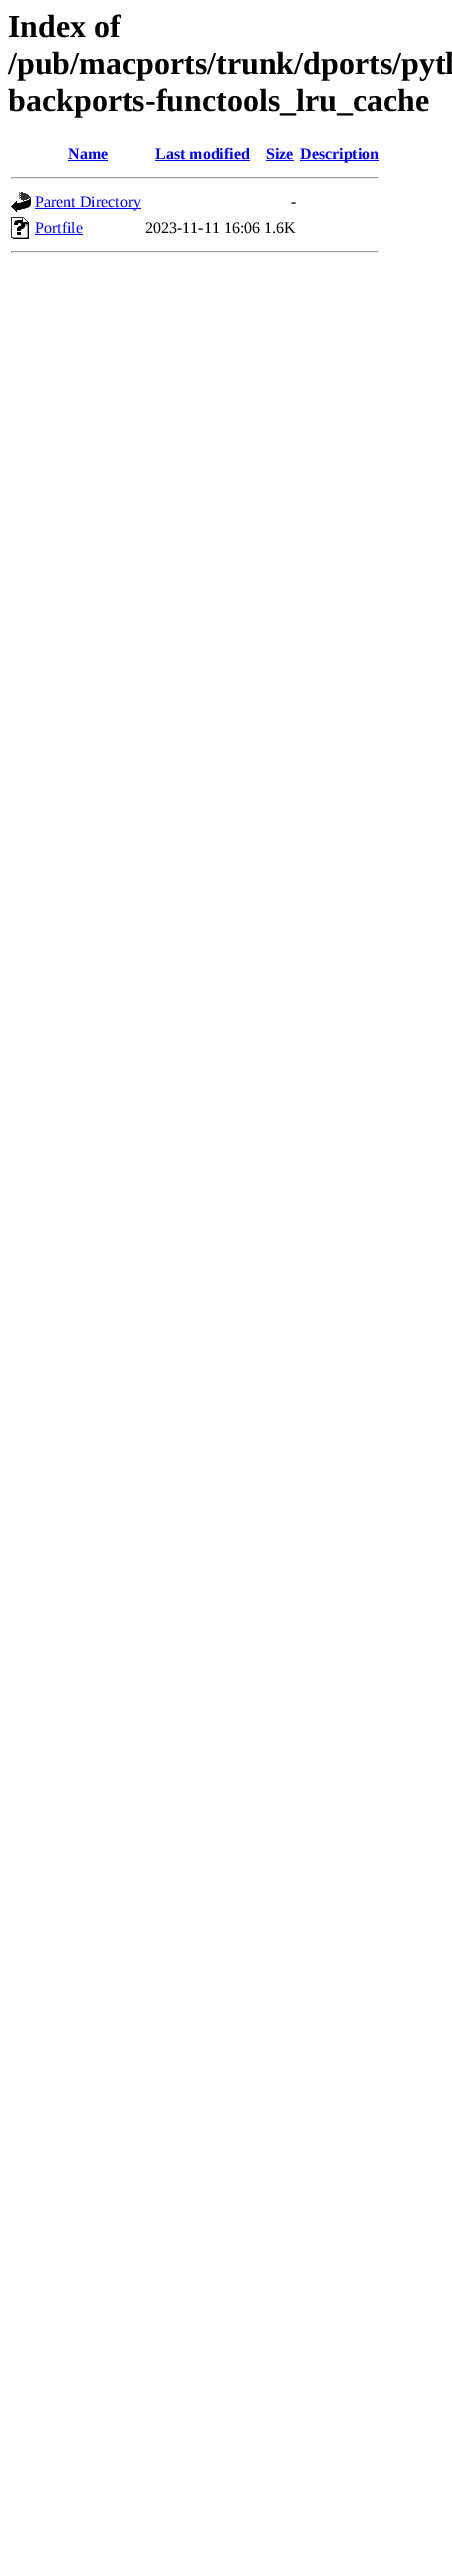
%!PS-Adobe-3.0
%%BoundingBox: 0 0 452 2555
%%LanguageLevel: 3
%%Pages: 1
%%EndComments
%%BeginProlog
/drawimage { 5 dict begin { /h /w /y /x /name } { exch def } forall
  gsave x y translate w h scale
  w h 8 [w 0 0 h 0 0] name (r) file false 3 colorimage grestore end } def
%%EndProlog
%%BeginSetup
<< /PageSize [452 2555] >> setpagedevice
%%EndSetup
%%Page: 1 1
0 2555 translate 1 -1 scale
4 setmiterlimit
1 setgray
0 0 452 2555 rectfill
0 0 0.933 setrgbcolor
68 160 40 1 rectfill
155 160 95 1 rectfill
266 160 28 1 rectfill
300 160 79 1 rectfill
0.624 setgray
11 177 368 1 rectfill
0.933 setgray
378 177 1 2 rectfill
11 178 368 1 rectfill
0.624 setgray
11 177 1 2 rectfill
(images/1.raw) 11 192 20 20 drawimage
0 0 0.933 setrgbcolor
35 208 106 1 rectfill
(images/2.raw) 11 217 18 22 drawimage
35 234 48 1 rectfill
0.624 setgray
11 251 368 1 rectfill
0.933 setgray
378 251 1 2 rectfill
11 252 368 1 rectfill
0.624 setgray
11 251 1 2 rectfill
/LiberationSerif-Bold [32 0 0 -32 0 0] selectfont
0 setgray
8 37 moveto (Index of) show
8 74 moveto (/pub/macports/trunk/dports/pyth) show
8 111 moveto (backports-functools_lru_cache) show
/LiberationSerif-Bold [16 0 0 -16 0 0] selectfont
0 0 0.933 setrgbcolor
68 159 moveto (Name) show
155 159 moveto (Last modified) show
266 159 moveto (Size) show
300 159 moveto (Description) show
/LiberationSerif-Regular [16 0 0 -16 0 0] selectfont
35 207 moveto (Parent Directory) show
0 setgray
291 207 moveto (-) show
0 0 0.933 setrgbcolor
35 233 moveto (Portfile) show
0 setgray
145 233 moveto (2023-11-11 16:06 1.6K) show
showpage
%%EOF
